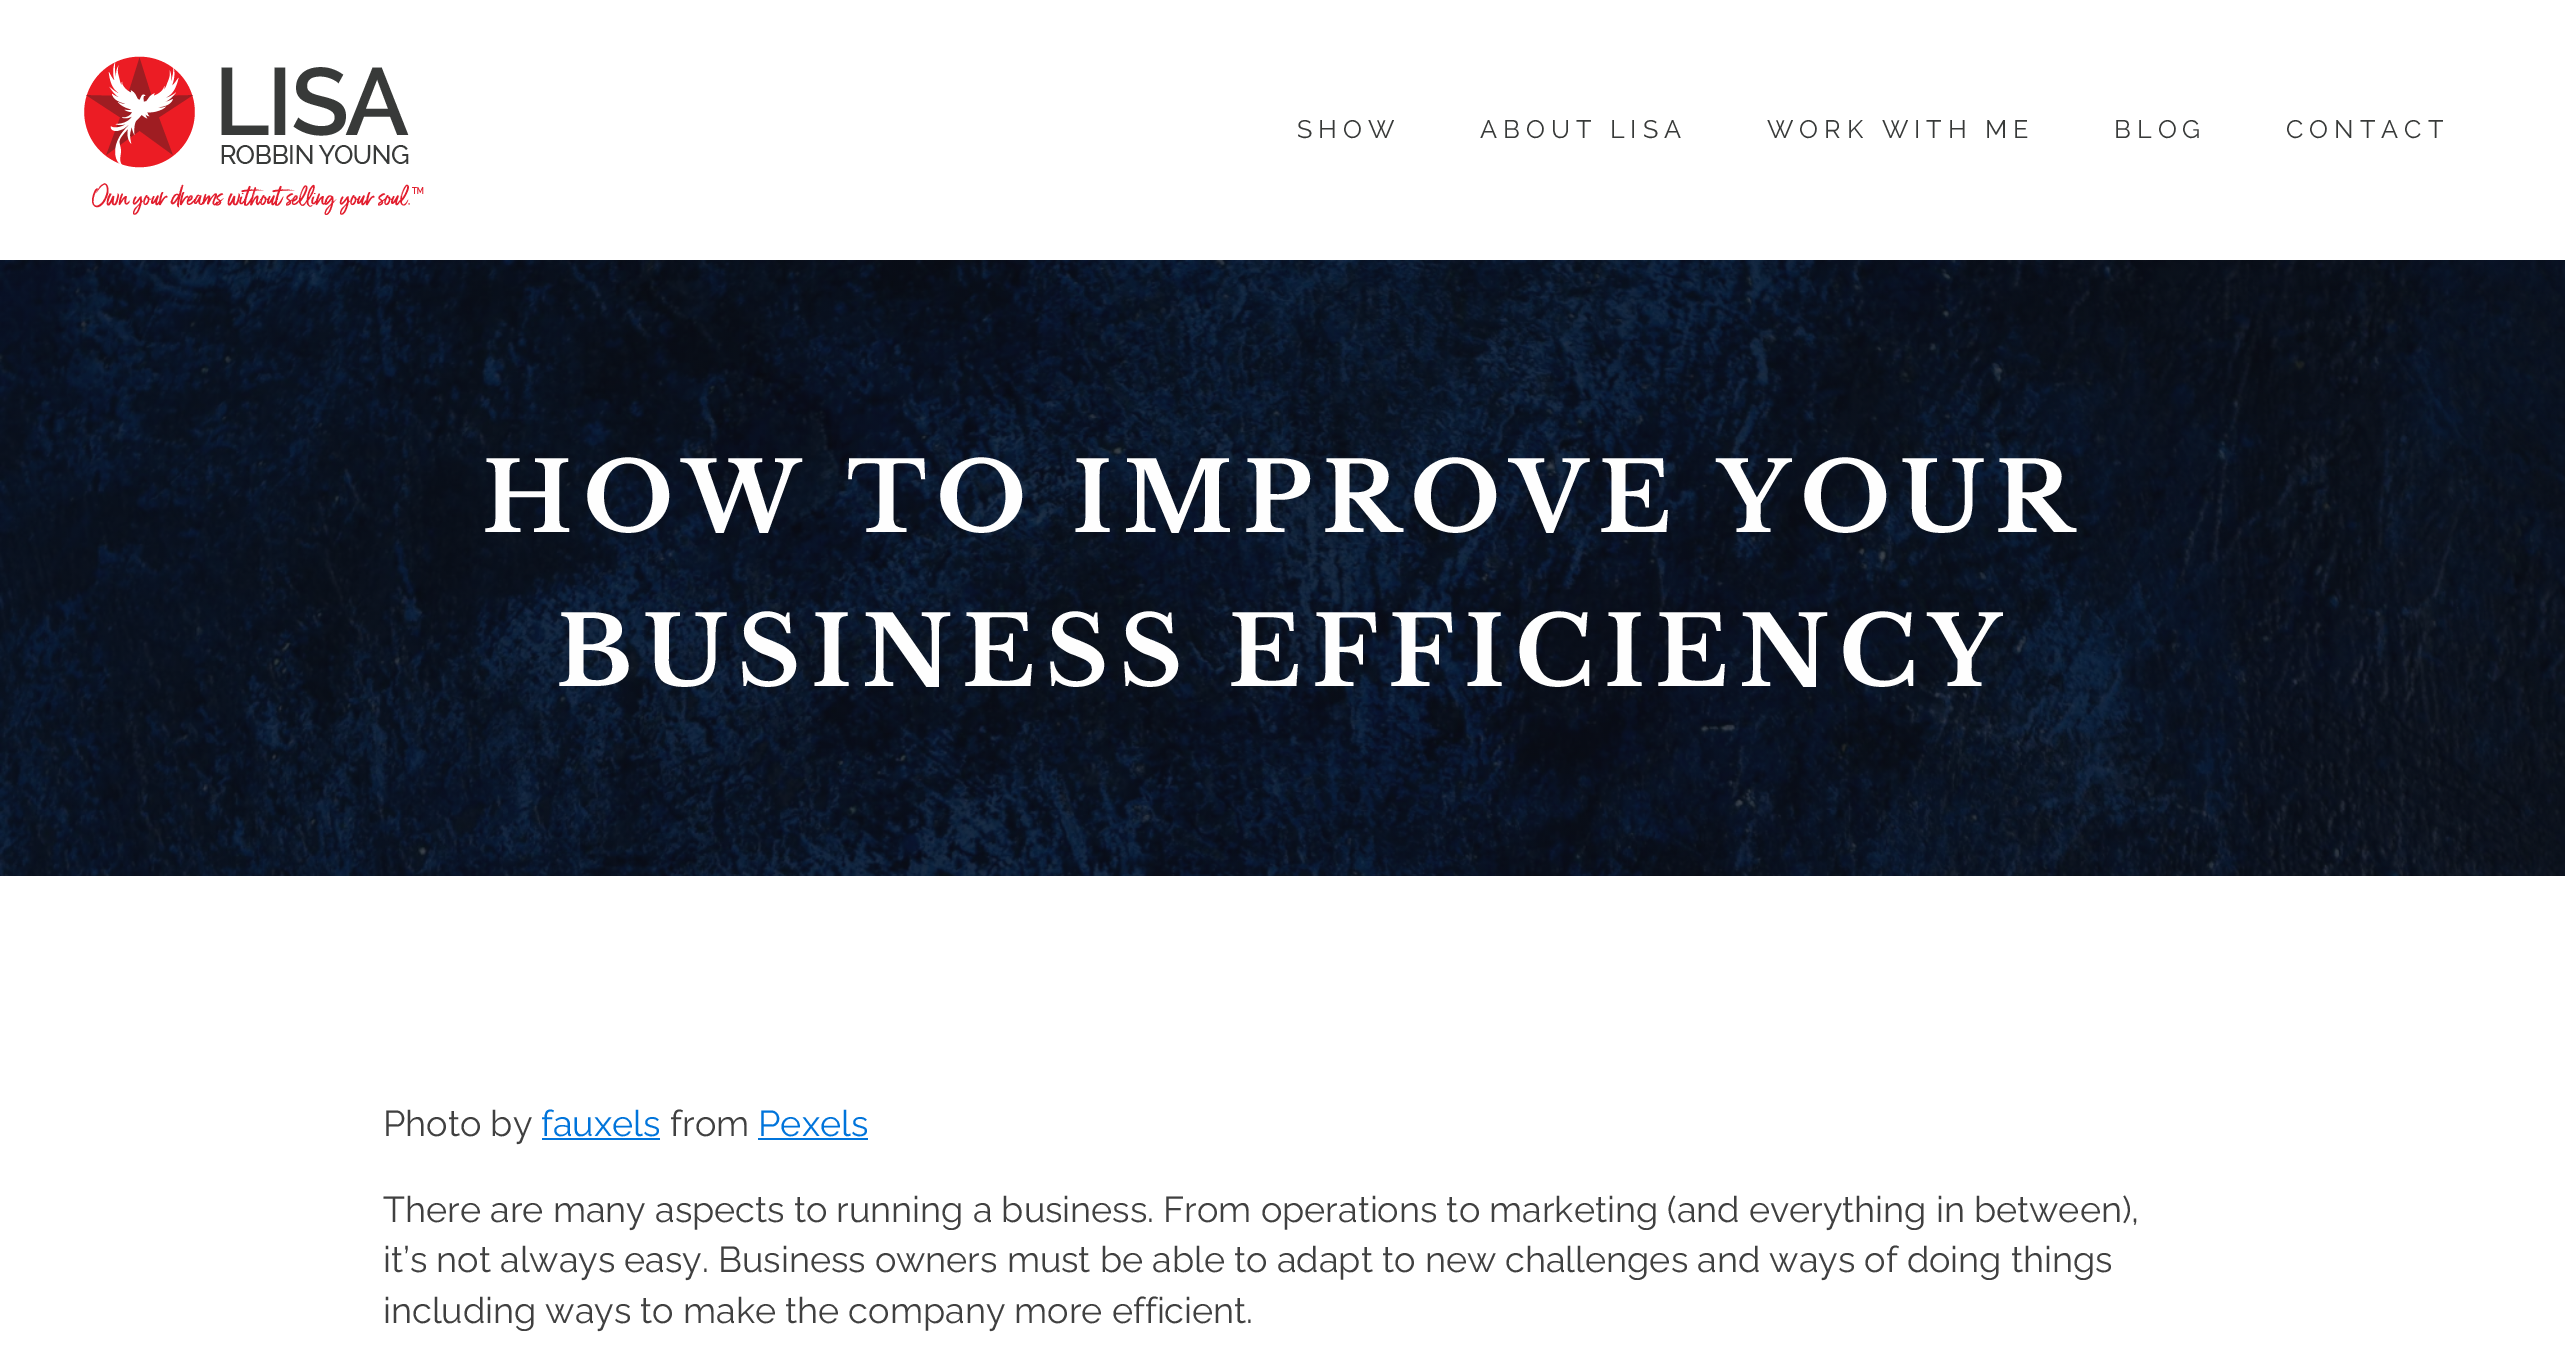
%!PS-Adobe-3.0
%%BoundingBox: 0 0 2565 1351
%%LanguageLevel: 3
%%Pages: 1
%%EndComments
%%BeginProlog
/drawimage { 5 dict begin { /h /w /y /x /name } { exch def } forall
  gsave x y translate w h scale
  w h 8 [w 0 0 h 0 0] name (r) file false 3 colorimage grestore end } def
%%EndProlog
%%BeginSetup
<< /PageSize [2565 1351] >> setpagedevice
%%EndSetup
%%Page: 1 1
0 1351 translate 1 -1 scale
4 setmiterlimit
1 setgray
0 0 2565 1351 rectfill
(images/1.raw) 84 56 340 159 drawimage
(images/2.raw) 0 260 2565 616 drawimage
0 0.455 0.859 setrgbcolor
542 1138 118 2 rectfill
758 1138 110 2 rectfill
/Raleway-Regular [25.25 0 0 -25.25 0 0] selectfont
0.22 0.227 0.224 setrgbcolor
1297 138 moveto 6 0 (SHOW) ashow
1480 138 moveto 6 0 (ABOUT LISA) ashow
1767 138 moveto 6 0 (WORK WITH ME) ashow
2114 138 moveto 6 0 (BLOG) ashow
2286 138 moveto 6 0 (CONTACT) ashow
/LibreBaskerville-Bold [96 0 0 -96 0 0] selectfont
0.996 setgray
482 532 moveto 10 0 (HOW TO IMPROVE YOUR) ashow
556 686 moveto 10 0 (BUSINESS EFFICIENCY) ashow
/Raleway-Regular [36 0 0 -36 0 0] selectfont
0.251 setgray
383 1136 moveto (Photo by) show
0 0.455 0.859 setrgbcolor
541 1136 moveto (fauxels) show
0.251 setgray
670 1136 moveto (from) show
0 0.455 0.859 setrgbcolor
758 1136 moveto (Pexels) show
0.251 setgray
383 1222 moveto (There are many aspects to running a business. From operations to marketing \(and everything in between\),) show
383 1272 moveto (it’s not always easy. Business owners must be able to adapt to new challenges and ways of doing things) show
383 1323 moveto (including ways to make the company more efficient.) show
showpage
%%EOF
